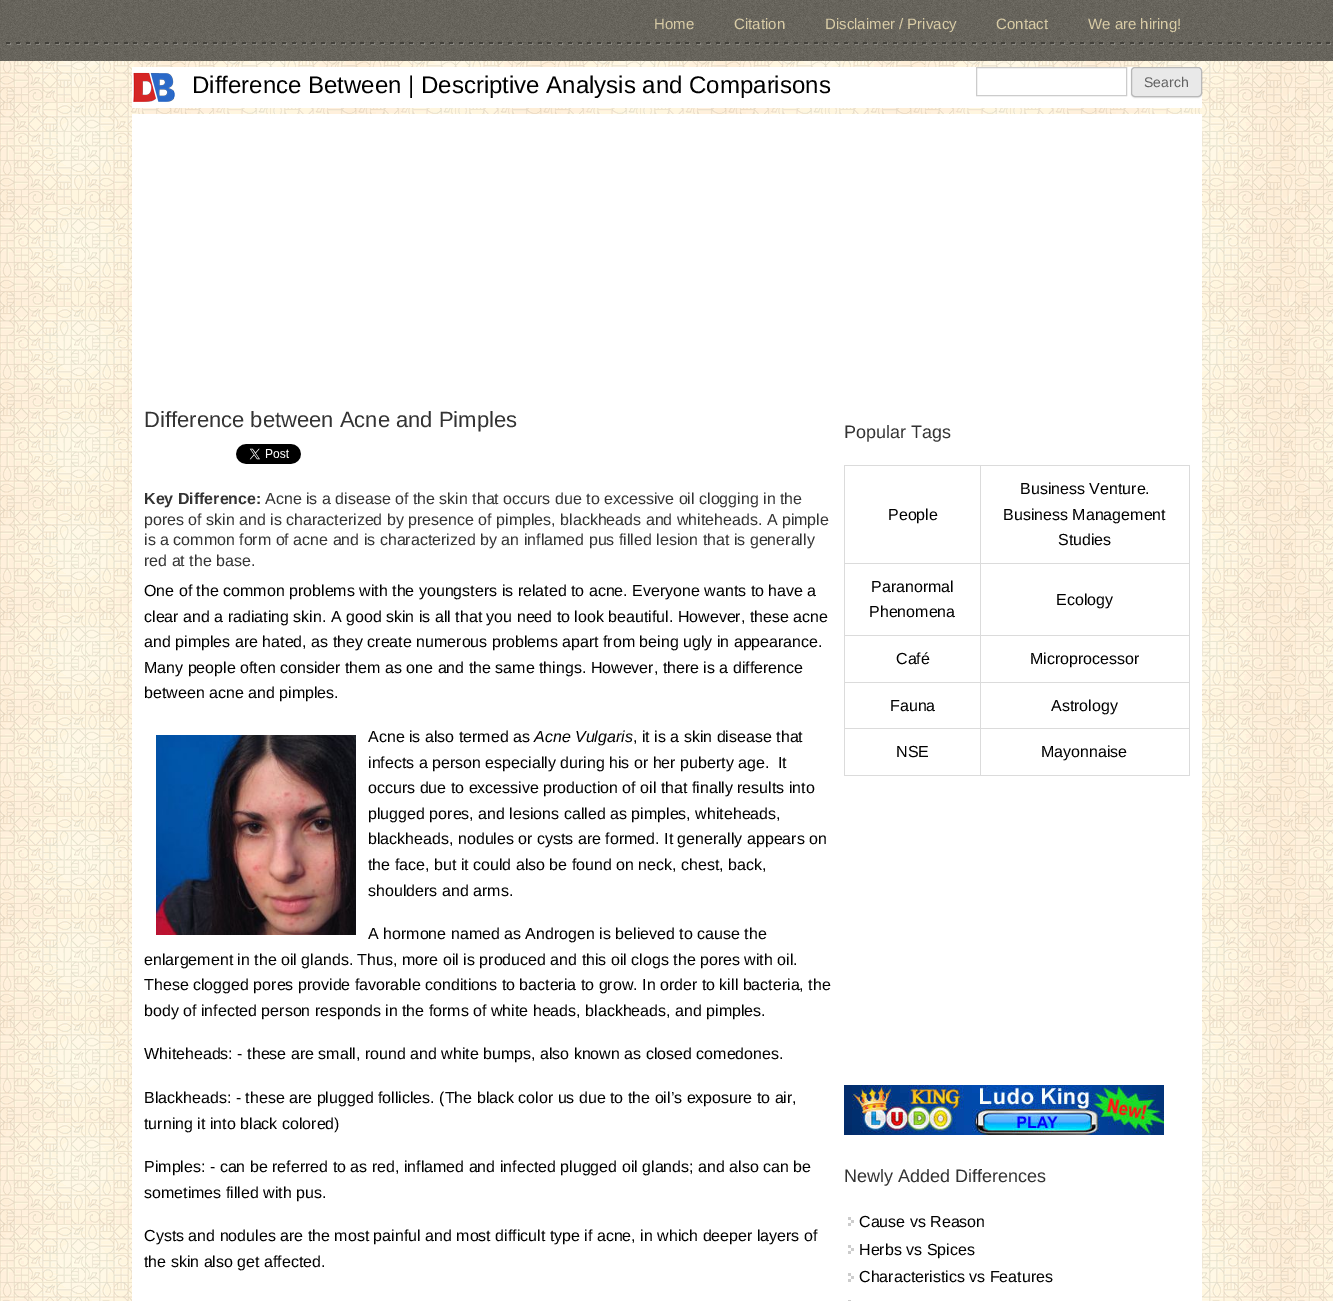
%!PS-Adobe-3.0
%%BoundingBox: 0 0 1333 1301
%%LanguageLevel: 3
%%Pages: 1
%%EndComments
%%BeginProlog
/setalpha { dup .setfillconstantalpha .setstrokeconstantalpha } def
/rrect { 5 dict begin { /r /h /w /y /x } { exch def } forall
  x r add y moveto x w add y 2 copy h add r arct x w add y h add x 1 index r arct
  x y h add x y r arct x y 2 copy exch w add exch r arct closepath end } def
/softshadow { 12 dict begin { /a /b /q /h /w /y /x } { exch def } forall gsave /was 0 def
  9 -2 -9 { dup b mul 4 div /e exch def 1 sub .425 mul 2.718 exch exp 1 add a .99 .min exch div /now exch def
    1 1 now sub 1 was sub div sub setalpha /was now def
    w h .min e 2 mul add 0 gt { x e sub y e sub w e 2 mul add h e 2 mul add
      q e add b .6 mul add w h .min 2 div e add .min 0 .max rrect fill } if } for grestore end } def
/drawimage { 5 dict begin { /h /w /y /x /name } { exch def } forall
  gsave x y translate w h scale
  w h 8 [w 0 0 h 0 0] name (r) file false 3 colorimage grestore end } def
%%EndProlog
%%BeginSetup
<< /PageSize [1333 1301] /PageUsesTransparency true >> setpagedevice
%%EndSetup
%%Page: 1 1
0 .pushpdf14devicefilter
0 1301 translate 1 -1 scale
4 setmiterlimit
1 setgray
0 0 1333 1301 rectfill
(images/1.raw) 0 61 1333 1240 drawimage
(images/2.raw) 0 0 1333 61 drawimage
132 67 1070 41 rectfill
(images/3.raw) 133 72 42 30 drawimage
0.8 setgray
976.5 67.5 150 28 rectstroke
0 setgray
1131 68 71 30 4 0.5 0.1 softshadow
0.914 setgray
1131 67 71 30 4 rrect fill
0.925 setgray
newpath 1135 69 moveto 1198 69 lineto 1200 69 1201 70 1201 72 curveto 1201 65 1192 68 1188 68 curveto 1146 68 lineto 1141 68 1132 65 1132 72 curveto 1132 70 1133 69 1135 69 curveto closepath fill
0.722 setgray
1131.5 67.5 70 29 3.5 rrect stroke
1 setgray
132 114 1070 1187 rectfill
(images/4.raw) 236 444 65 20 drawimage
(images/5.raw) 156 735 200 200 drawimage
0.859 setgray
980 465 210 1 rectfill
980 563 210 1 rectfill
980 635 210 1 rectfill
980 682 210 1 rectfill
980 728 210 1 rectfill
1189 728 1 48 rectfill
980 775 210 1 rectfill
980 728 1 48 rectfill
844 728 137 1 rectfill
980 682 1 47 rectfill
844 682 137 1 rectfill
980 635 1 48 rectfill
844 635 137 1 rectfill
980 563 1 73 rectfill
844 563 137 1 rectfill
980 465 1 99 rectfill
844 465 137 1 rectfill
844 775 137 1 rectfill
844 728 1 48 rectfill
844 682 1 47 rectfill
844 635 1 48 rectfill
844 563 1 73 rectfill
844 465 1 99 rectfill
1189 682 1 47 rectfill
1189 635 1 48 rectfill
1189 563 1 73 rectfill
1189 465 1 99 rectfill
(images/6.raw) 844 1085 320 50 drawimage
(images/7.raw) 848 1217 6 9 drawimage
(images/7.raw) 848 1245 6 9 drawimage
(images/7.raw) 848 1273 6 9 drawimage
0.8 setgray
848 1300 3 1 rectfill
/LiberationSans-Regular [15 0 0 -15 0 0] selectfont
0.851 0.8 0.651 setrgbcolor
654 29 moveto (Home) show
734 29 moveto (Citation) show
825 29 moveto (Disclaimer / Privacy) show
996 29 moveto (Contact) show
1088 29 moveto (We are hiring!) show
/LiberationSans-Regular [24 0 0 -24 0 0] selectfont
0 setgray
192 93 moveto (Difference Between | Descriptive Analysis and Comparisons) show
/LiberationSans-Regular [14 0 0 -14 0 0] selectfont
0.38 setgray
1144 87 moveto (Search) show
/LiberationSans-Regular [22 0 0 -22 0 0] selectfont
0.2 setgray
144 427 moveto (Difference between Acne and Pimples) show
/LiberationSans-Bold [16 0 0 -16 0 0] selectfont
144 504 moveto (Key Difference:) show
/LiberationSans-Regular [16 0 0 -16 0 0] selectfont
265 504 moveto (Acne is a disease of the skin that occurs due to excessive oil clogging in the) show
144 525 moveto (pores of skin and is characterized by presence of pimples, blackheads and whiteheads. A pimple) show
144 545 moveto (is a common form of acne and is characterized by an inflamed pus filled lesion that is generally) show
144 566 moveto (red at the base.) show
0 setgray
144 596 moveto (One of the common problems with the youngsters is related to acne. Everyone wants to have a) show
144 622 moveto (clear and a radiating skin. A good skin is all that you need to look beautiful. However, these acne) show
144 647 moveto (and pimples are hated, as they create numerous problems apart from being ugly in appearance.) show
144 673 moveto (Many people often consider them as one and the same things. However, there is a difference) show
144 698 moveto (between acne and pimples.) show
368 742 moveto (Acne is also termed as) show
/LiberationSans-Italic [16 0 0 -16 0 0] selectfont
534 742 moveto (Acne Vulgaris) show
/LiberationSans-Regular [16 0 0 -16 0 0] selectfont
633 742 moveto (, it is a skin disease that) show
368 768 moveto (infects a person especially during his or her puberty age.  It) show
368 793 moveto (occurs due to excessive production of oil that finally results into) show
368 819 moveto (plugged pores, and lesions called as pimples, whiteheads,) show
368 844 moveto (blackheads, nodules or cysts are formed. It generally appears on) show
368 870 moveto (the face, but it could also be found on neck, chest, back,) show
368 896 moveto (shoulders and arms.) show
368 939 moveto (A hormone named as Androgen is believed to cause the) show
144 965 moveto (enlargement in the oil glands. Thus, more oil is produced and this oil clogs the pores with oil.) show
144 990 moveto (These clogged pores provide favorable conditions to bacteria to grow. In order to kill bacteria, the) show
144 1016 moveto (body of infected person responds in the forms of white heads, blackheads, and pimples.) show
144 1059 moveto (Whiteheads: - these are small, round and white bumps, also known as closed comedones.) show
144 1103 moveto (Blackheads: - these are plugged follicles. \(The black color us due to the oil’s exposure to air,) show
144 1129 moveto (turning it into black colored\)) show
144 1172 moveto (Pimples: - can be referred to as red, inflamed and infected plugged oil glands; and also can be) show
144 1198 moveto (sometimes filled with pus.) show
144 1241 moveto (Cysts and nodules are the most painful and most difficult type if acne, in which deeper layers of) show
144 1267 moveto (the skin also get affected.) show
/LiberationSans-Regular [18 0 0 -18 0 0] selectfont
0.2 setgray
844 438 moveto (Popular Tags) show
/LiberationSans-Regular [16 0 0 -16 0 0] selectfont
0 setgray
888 520 moveto (People) show
1020 494 moveto (Business Venture.) show
1003 520 moveto (Business Management) show
1058 545 moveto (Studies) show
871 592 moveto (Paranormal) show
869 617 moveto (Phenomena) show
1056 605 moveto (Ecology) show
896 664 moveto (Café) show
1030 664 moveto (Microprocessor) show
890 711 moveto (Fauna) show
1051 711 moveto (Astrology) show
896 757 moveto (NSE) show
1041 757 moveto (Mayonnaise) show
/LiberationSans-Regular [18 0 0 -18 0 0] selectfont
0.2 setgray
844 1182 moveto (Newly Added Differences) show
/LiberationSans-Regular [16 0 0 -16 0 0] selectfont
0 setgray
859 1227 moveto (Cause vs Reason) show
859 1255 moveto (Herbs vs Spices) show
859 1282 moveto (Characteristics vs Features) show
.poppdf14devicefilter showpage
%%EOF
